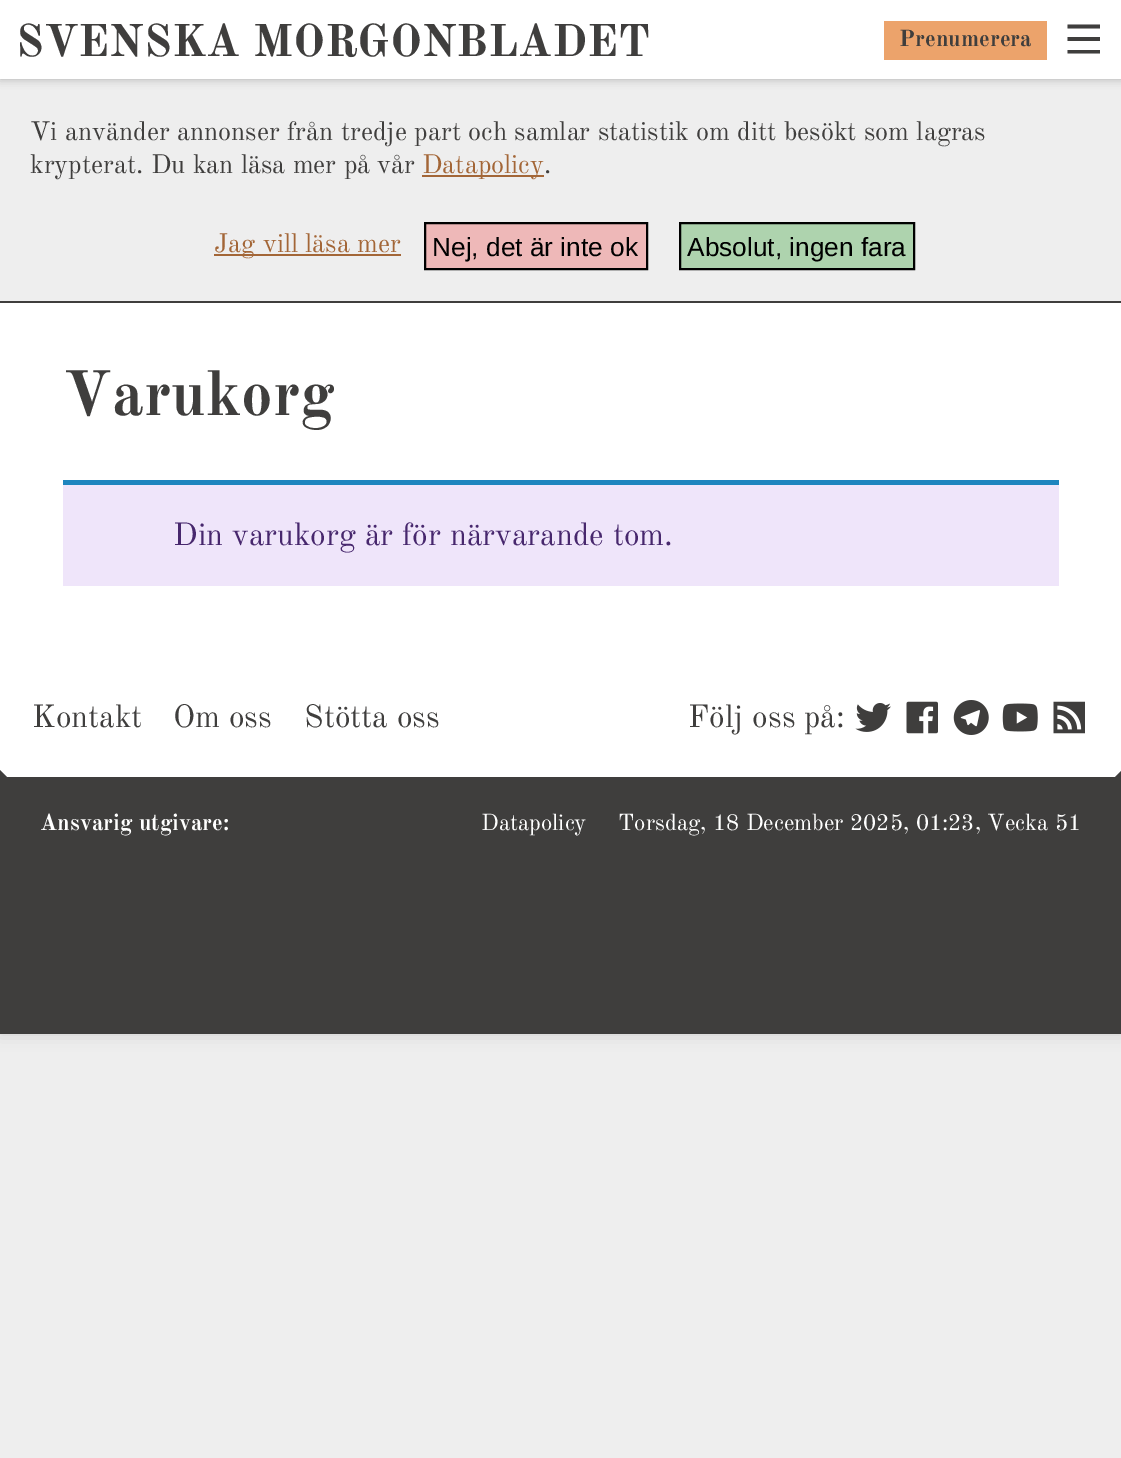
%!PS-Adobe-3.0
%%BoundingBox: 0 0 1121 1458
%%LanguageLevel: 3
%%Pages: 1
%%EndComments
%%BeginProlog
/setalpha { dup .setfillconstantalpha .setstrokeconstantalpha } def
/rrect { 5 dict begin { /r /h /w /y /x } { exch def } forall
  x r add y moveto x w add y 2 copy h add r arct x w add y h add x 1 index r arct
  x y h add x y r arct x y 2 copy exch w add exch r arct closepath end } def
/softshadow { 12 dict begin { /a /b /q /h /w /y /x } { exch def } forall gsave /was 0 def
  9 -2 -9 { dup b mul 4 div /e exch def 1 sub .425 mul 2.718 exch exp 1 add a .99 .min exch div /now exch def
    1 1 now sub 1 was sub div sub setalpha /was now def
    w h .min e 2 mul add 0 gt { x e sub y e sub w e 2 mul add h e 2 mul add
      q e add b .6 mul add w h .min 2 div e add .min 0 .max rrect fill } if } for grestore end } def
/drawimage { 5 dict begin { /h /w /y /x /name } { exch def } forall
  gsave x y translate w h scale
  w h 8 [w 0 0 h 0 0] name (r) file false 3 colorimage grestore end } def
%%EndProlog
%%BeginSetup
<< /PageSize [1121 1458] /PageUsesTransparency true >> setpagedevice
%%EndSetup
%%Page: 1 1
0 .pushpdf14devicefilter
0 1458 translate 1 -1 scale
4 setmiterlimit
0.933 setgray
0 0 1121 1458 rectfill
0 setgray
0 79 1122 955 0 8 0.13 softshadow
1 setgray
0 303 1121 474 rectfill
0.933 setgray
0 79 1121 222 rectfill
0 setgray
0 0 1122 79 0 4.5 0.27 softshadow
1 setgray
0 0 1121 79 rectfill
0.925 0.639 0.42 setrgbcolor
884 21 163 39 rectfill
0.247 0.243 0.239 setrgbcolor
newpath 1067.5 24.5 moveto 1100 24.5 lineto 1100 28.5 lineto 1067.5 28.5 lineto closepath 1067.5 37 moveto 1100 37 lineto 1100 41 lineto 1067.5 41 lineto closepath 1067.5 50 moveto 1100 50 lineto 1100 53.5 lineto 1067.5 53.5 lineto closepath fill
0 301 1121 2 rectfill
0.639 0.4 0.216 setrgbcolor
422 175 122 2 rectfill
214 254 187 2 rectfill
0.933 0.722 0.722 setrgbcolor
newpath 425 223 moveto 647 223 lineto 647 269 lineto 425 269 lineto closepath gsave fill grestore
0 setgray
2 setlinewidth
stroke
0.682 0.827 0.682 setrgbcolor
newpath 680 223 moveto 914 223 lineto 914 269 lineto 680 269 lineto closepath gsave fill grestore
0 setgray
stroke
0.937 0.898 0.98 setrgbcolor
63 485 996 101 rectfill
0.118 0.522 0.745 setrgbcolor
63 480 996 5 rectfill
(images/1.raw) 855 703 36 29 drawimage
(images/2.raw) 906 701 32 33 drawimage
(images/3.raw) 953 700 36 35 drawimage
(images/4.raw) 1002 703 36 29 drawimage
(images/5.raw) 1053 701 32 33 drawimage
0.247 0.243 0.239 setrgbcolor
newpath 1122 770 moveto 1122 1034 lineto 1113 1026 lineto 1113 779 lineto closepath fill
0 1026 1121 8 rectfill
newpath 0 1034 moveto 0 770 lineto 9 779 lineto 9 1026 lineto closepath fill
7 777 1108 249 rectfill
/OldStandardTT-Bold [44.9 0 0 -44.9 0 0] selectfont
16 56 moveto (SVENSKA MORGONBLADET) show
/OldStandardTT-Bold [22.75 0 0 -22.75 0 0] selectfont
899 46 moveto (Prenumerera) show
/OldStandardTT-Regular [26.25 0 0 -26.25 0 0] selectfont
30 140 moveto (Vi använder annonser från tredje part och samlar statistik om ditt besökt som lagras) show
30 173 moveto (krypterat. Du kan läsa mer på vår) show
0.639 0.4 0.216 setrgbcolor
422 173 moveto (Datapolicy) show
0.247 0.243 0.239 setrgbcolor
544 173 moveto (.) show
0.639 0.4 0.216 setrgbcolor
214 252 moveto (Jag vill läsa mer) show
/LiberationSans-Regular [26.25 0 0 -26.25 0 0] selectfont
0 setgray
432 256 moveto (Nej, det är inte ok) show
687 256 moveto (Absolut, ingen fara) show
/OldStandardTT-Bold [63 0 0 -63 0 0] selectfont
0.247 0.243 0.239 setrgbcolor
63 415 moveto (Varukorg) show
/OldStandardTT-Regular [31.5 0 0 -31.5 0 0] selectfont
0.278 0.153 0.427 setrgbcolor
173 545 moveto (Din varukorg är för närvarande tom.) show
0.247 0.243 0.239 setrgbcolor
32 727 moveto (Kontakt) show
173 727 moveto (Om oss) show
304 727 moveto (Stötta oss) show
688 727 moveto (Följ oss på:) show
/OldStandardTT-Bold [22.75 0 0 -22.75 0 0] selectfont
1 setgray
40 830 moveto (Ansvarig utgivare:) show
/OldStandardTT-Regular [22.75 0 0 -22.75 0 0] selectfont
481 830 moveto (Datapolicy) show
618 830 moveto (Torsdag, 18 December 2025, 01:23, Vecka 51) show
.poppdf14devicefilter showpage
%%EOF
